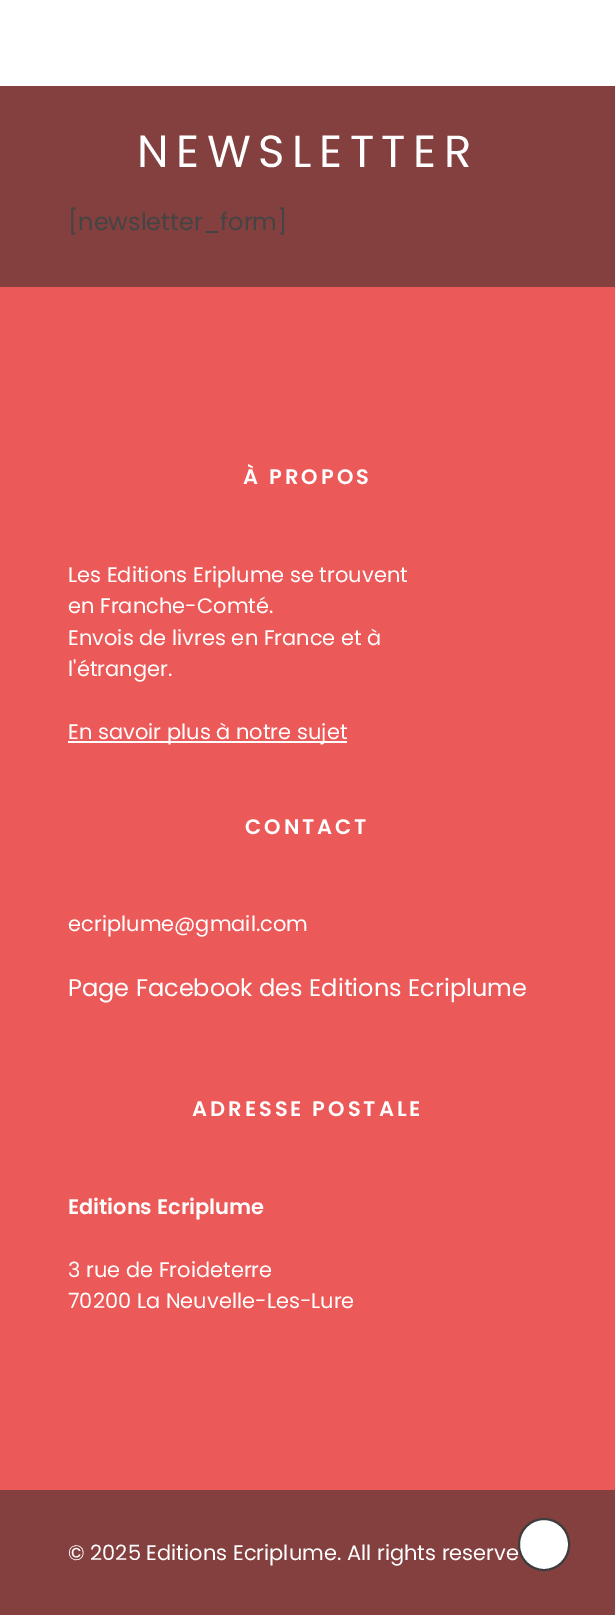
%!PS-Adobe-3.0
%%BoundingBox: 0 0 615 1615
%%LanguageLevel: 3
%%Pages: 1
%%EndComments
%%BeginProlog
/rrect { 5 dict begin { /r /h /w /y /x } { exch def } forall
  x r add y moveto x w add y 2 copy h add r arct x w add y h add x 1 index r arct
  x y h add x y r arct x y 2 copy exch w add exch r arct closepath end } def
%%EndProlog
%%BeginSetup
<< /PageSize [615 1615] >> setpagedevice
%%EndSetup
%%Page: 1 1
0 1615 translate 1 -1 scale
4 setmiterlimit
1 setgray
0 0 615 1615 rectfill
0.518 0.247 0.247 setrgbcolor
0 86 615 201 rectfill
0.925 0.349 0.349 setrgbcolor
0 287 615 1203 rectfill
1 setgray
68 741 279 2 rectfill
0.518 0.247 0.247 setrgbcolor
0 1490 615 125 rectfill
1 setgray
519 1519 50 51 25 rrect gsave fill grestore
0.239 setgray
2 setlinewidth
stroke
/Poppins-Regular [45 0 0 -45 0 0] selectfont
1 setgray
137 167 moveto 7.5 0 (NEWSLETTER) ashow
/Poppins-Regular [24 0 0 -24 0 0] selectfont
0.267 setgray
68 230 moveto ([newsletter_form]) show
/Poppins-SemiBold [21 0 0 -21 0 0] selectfont
1 setgray
243 484 moveto 3 0 (À PROPOS) ashow
/Poppins-Regular [21 0 0 -21 0 0] selectfont
68 582 moveto (Les Editions Eriplume se trouvent) show
68 613 moveto (en Franche-Comté.) show
68 645 moveto (Envois de livres en France et à) show
68 676 moveto (l'étranger.) show
68 739 moveto (En savoir plus à notre sujet) show
/Poppins-SemiBold [21 0 0 -21 0 0] selectfont
245 834 moveto 3 0 (CONTACT) ashow
/Poppins-Regular [21 0 0 -21 0 0] selectfont
68 931 moveto (ecriplume@gmail.com) show
/Poppins-Regular [24 0 0 -24 0 0] selectfont
68 996 moveto (Page Facebook des Editions Ecriplume) show
/Poppins-SemiBold [21 0 0 -21 0 0] selectfont
192 1116 moveto 3 0 (ADRESSE POSTALE) ashow
68 1214 moveto (Editions Ecriplume) show
/Poppins-Regular [21 0 0 -21 0 0] selectfont
68 1277 moveto (3 rue de Froideterre) show
68 1308 moveto (70200 La Neuvelle-Les-Lure) show
68 1560 moveto (© 2025 Editions Ecriplume. All rights reserve) show
showpage
%%EOF
